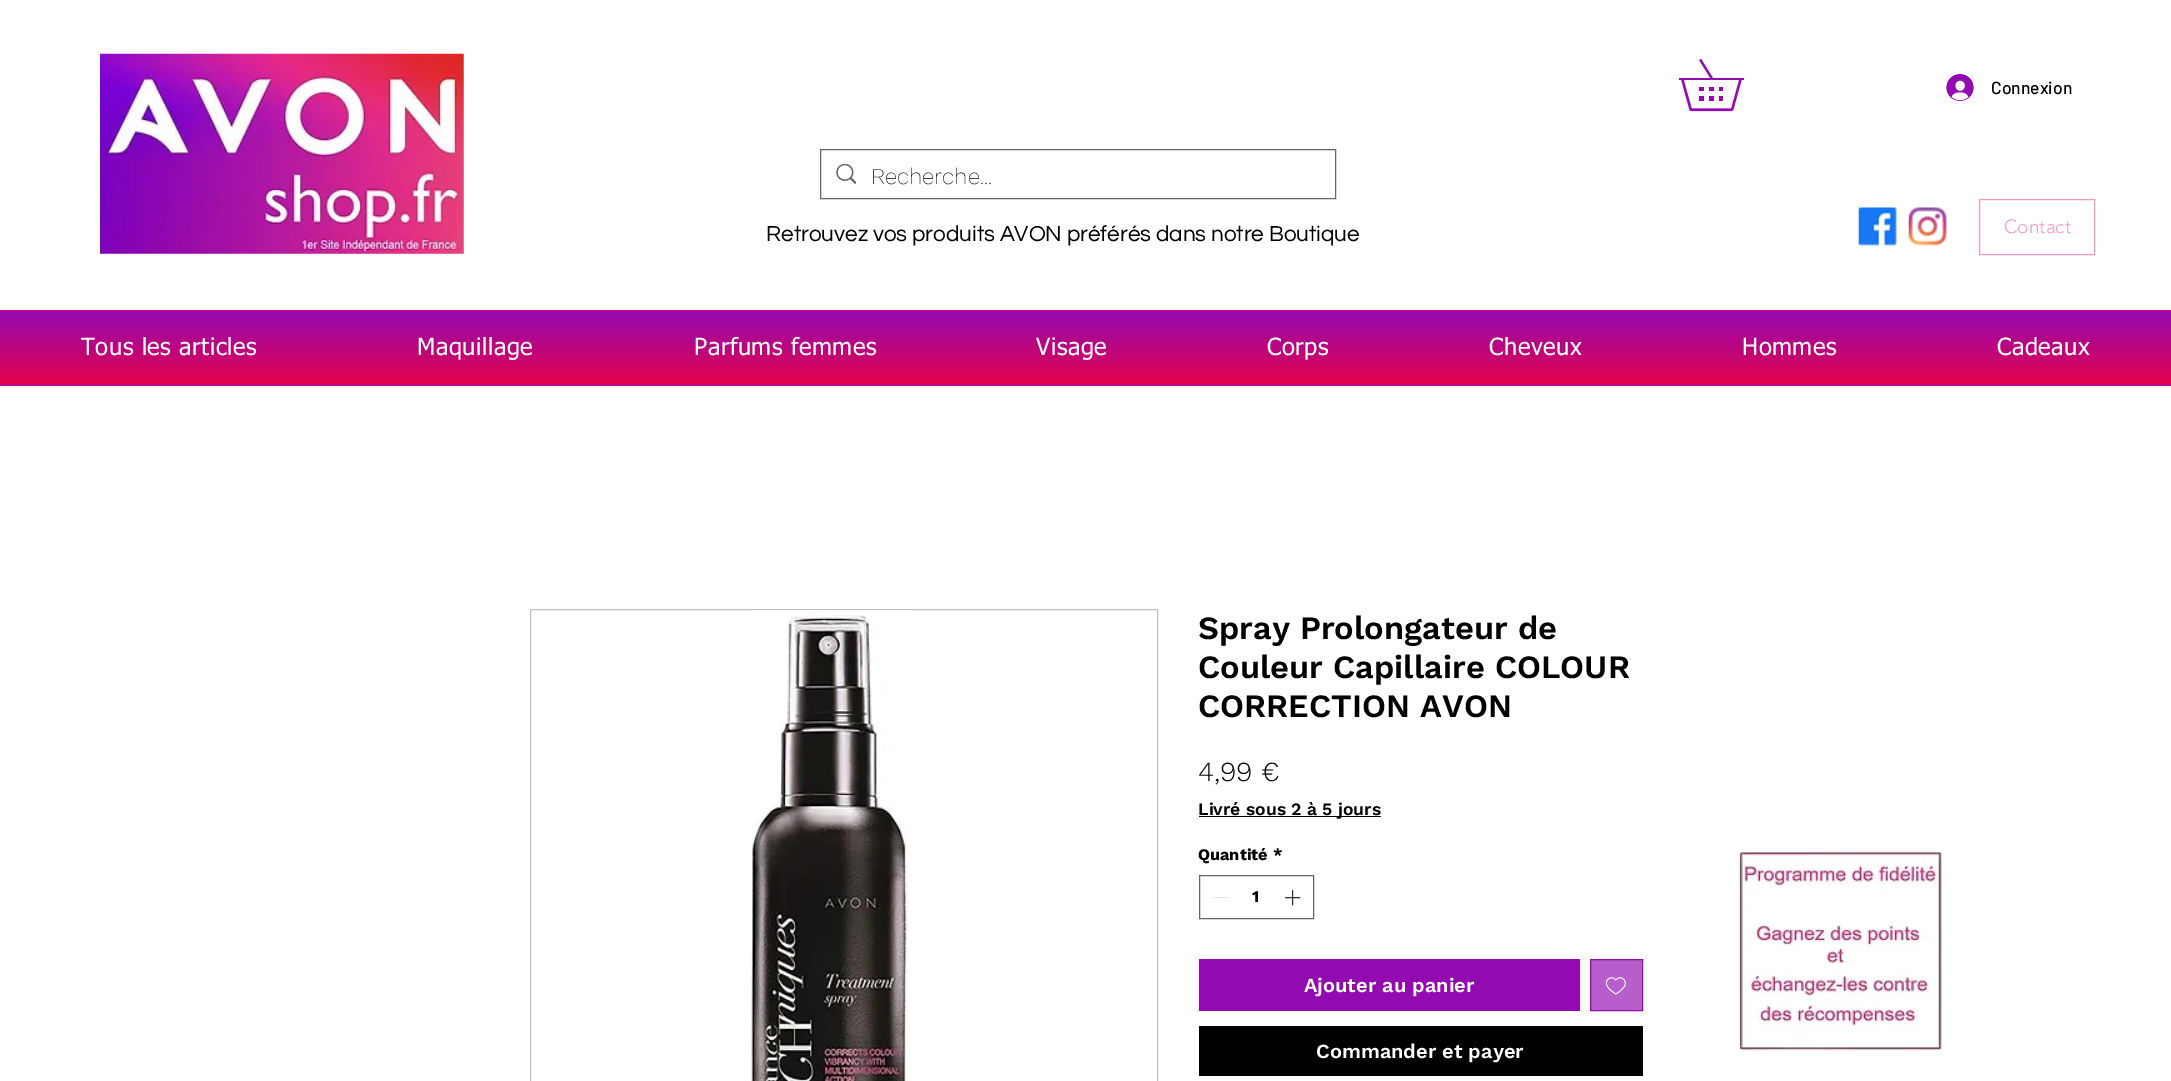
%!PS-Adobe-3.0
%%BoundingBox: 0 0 2171 1081
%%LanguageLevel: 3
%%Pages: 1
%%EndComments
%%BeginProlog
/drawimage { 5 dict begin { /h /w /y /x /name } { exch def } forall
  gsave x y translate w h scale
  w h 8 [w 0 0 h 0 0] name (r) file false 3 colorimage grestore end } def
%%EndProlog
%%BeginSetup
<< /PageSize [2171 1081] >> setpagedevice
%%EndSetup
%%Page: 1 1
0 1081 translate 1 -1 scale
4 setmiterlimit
1 setgray
0 0 2171 1081 rectfill
(images/1.raw) 100 53 364 201 drawimage
0.4 setgray
820.5 149.5 515 49 rectstroke
(images/2.raw) 836 164 20 20 drawimage
(images/3.raw) 1679 58 65 54 drawimage
(images/4.raw) 1946 74 28 27 drawimage
(images/5.raw) 1858 207 39 39 drawimage
(images/6.raw) 1908 207 39 39 drawimage
0.957 0.596 0.773 setrgbcolor
1979.5 199.5 115 55 rectstroke
gsave newpath 0 310 moveto 2171 310 lineto 2171 311 lineto 0 311 lineto closepath clip newpath
<< /ShadingType 2 /ColorSpace /DeviceRGB /Coords [1086 237 1086 311] /Extend [true true] /Function << /FunctionType 2 /Domain [0 1] /C0 [0.58 0.039 0.694] /C1 [0.894 0.004 0.294] /N 1 >> >> shfill grestore
gsave newpath 0 311 moveto 2171 311 lineto 2171 385 lineto 0 385 lineto closepath clip newpath
<< /ShadingType 2 /ColorSpace /DeviceRGB /Coords [1086 311 1086 385] /Extend [true true] /Function << /FunctionType 2 /Domain [0 1] /C0 [0.58 0.039 0.694] /C1 [0.894 0.004 0.294] /N 1 >> >> shfill grestore
gsave newpath 0 385 moveto 2171 385 lineto 2171 386 lineto 0 386 lineto closepath clip newpath
<< /ShadingType 2 /ColorSpace /DeviceRGB /Coords [1086 385 1086 459] /Extend [true true] /Function << /FunctionType 2 /Domain [0 1] /C0 [0.58 0.039 0.694] /C1 [0.894 0.004 0.294] /N 1 >> >> shfill grestore
0.749 setgray
530.5 609.5 627 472 rectstroke
(images/7.raw) 751 610 160 471 drawimage
0 setgray
1199 816 182 1 rectfill
0.4 setgray
1199.5 875.5 114 43 rectstroke
0.89 setgray
1213 897 15 1 rectfill
(images/8.raw) 1285 890 16 16 drawimage
0.58 0.039 0.694 setrgbcolor
1199 959 381 52 rectfill
0.722 0.365 0.8 setrgbcolor
newpath 1590.5 959.5 moveto 1642.5 959.5 lineto 1642.5 1010.5 lineto 1590.5 1010.5 lineto closepath gsave fill grestore
0.58 0.039 0.694 setrgbcolor
stroke
(images/9.raw) 1605 977 21 18 drawimage
0 setgray
1199 1026 444 50 rectfill
(images/10.raw) 1738 850 204 201 drawimage
/WorkSans-ExtraLight [22.5 0 0 -22.5 0 0] selectfont
871 184 moveto (Recherche...) show
/Questrial-Regular [22.5 0 0 -22.5 0 0] selectfont
766 241 moveto (Retrouvez vos produits AVON préférés dans notre Boutique) show
/Barlow-Medium [17.5 0 0 -17.5 0 0] selectfont
1991 94 moveto (Connexion) show
/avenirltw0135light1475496-Light [19 0 0 -19 0 0] selectfont
0.957 0.596 0.773 setrgbcolor
2004 233 moveto (Contact) show
/tahoma-Regular [23.75 0 0 -23.75 0 0] selectfont
1 setgray
81 355 moveto 0.5 0 (Tous les articles) ashow
417 355 moveto 0.5 0 (Maquillage) ashow
694 355 moveto 0.5 0 (Parfums femmes) ashow
1036 355 moveto 0.5 0 (Visage) ashow
1267 355 moveto 0.5 0 (Corps) ashow
1489 355 moveto 0.5 0 (Cheveux) ashow
1742 355 moveto 0.5 0 (Hommes) ashow
1997 355 moveto 0.5 0 (Cadeaux) ashow
/WorkSans-SemiBold [32.5 0 0 -32.5 0 0] selectfont
0 setgray
1198 639 moveto (Spray Prolongateur de) show
1198 678 moveto (Couleur Capillaire COLOUR) show
1198 717 moveto (CORRECTION AVON) show
/WorkSans-Light [27.5 0 0 -27.5 0 0] selectfont
1198 781 moveto (4,99 €) show
/WorkSans-SemiBold [17.5 0 0 -17.5 0 0] selectfont
1198 815 moveto (Livré sous 2 à 5 jours) show
/WorkSans-Bold [16.25 0 0 -16.25 0 0] selectfont
1198 860 moveto (Quantité) show
1273 860 moveto (*) show
1252 902 moveto (1) show
/WorkSans-SemiBold [20 0 0 -20 0 0] selectfont
1 setgray
1304 992 moveto (Ajouter au panier) show
1316 1058 moveto (Commander et payer) show
showpage
%%EOF
